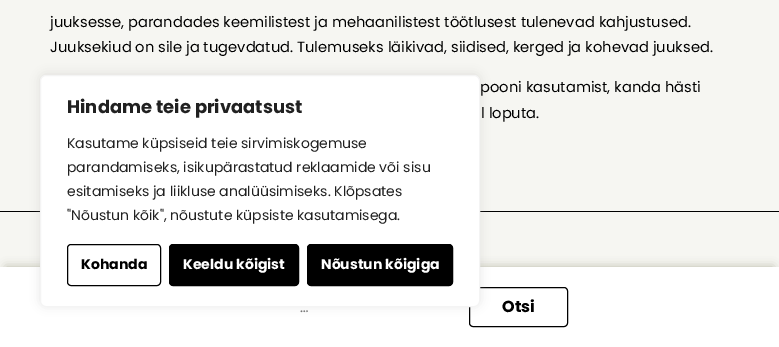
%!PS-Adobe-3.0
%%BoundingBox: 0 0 779 347
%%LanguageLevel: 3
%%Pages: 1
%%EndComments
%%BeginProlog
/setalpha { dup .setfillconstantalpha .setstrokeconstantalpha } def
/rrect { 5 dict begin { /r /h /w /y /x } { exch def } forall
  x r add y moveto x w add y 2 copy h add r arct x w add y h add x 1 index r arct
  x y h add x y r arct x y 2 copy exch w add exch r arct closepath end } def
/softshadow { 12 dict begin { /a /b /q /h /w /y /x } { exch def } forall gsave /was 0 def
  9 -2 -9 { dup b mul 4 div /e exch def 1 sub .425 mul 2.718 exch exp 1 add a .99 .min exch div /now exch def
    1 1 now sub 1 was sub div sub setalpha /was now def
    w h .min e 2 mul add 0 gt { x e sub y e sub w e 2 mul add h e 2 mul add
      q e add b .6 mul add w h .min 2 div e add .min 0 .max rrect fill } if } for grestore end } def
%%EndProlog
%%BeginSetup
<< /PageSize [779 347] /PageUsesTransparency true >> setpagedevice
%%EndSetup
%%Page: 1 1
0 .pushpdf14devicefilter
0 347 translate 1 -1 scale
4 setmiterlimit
0 setgray
0 0 779 347 rectfill
0.965 0.965 0.949 setrgbcolor
0 0 779 211 rectfill
0 212 779 55 rectfill
0.725 0.725 0.659 setrgbcolor
6 267 767 68 0 5 1 softshadow
1 setgray
0 267 779 80 rectfill
0 setgray
469.5 287.5 98 39 3.5 rrect stroke
0.675 0.671 0.671 setrgbcolor
40 74 440 232 6 5 0.3 softshadow
1 setgray
40.5 75.5 439 231 5.5 rrect gsave fill grestore
0.957 setgray
stroke
0 setgray
67.5 244.5 93 41 3.5 rrect stroke
169.5 244.5 129 41 3.5 rrect gsave fill grestore
stroke
307.5 244.5 145 41 3.5 rrect gsave fill grestore
stroke
/Poppins-Regular [14.7 0 0 -14.7 0 0] selectfont
50 27 moveto (juuksesse, parandades keemilistest ja mehaanilistest töötlusest tulenevad kahjustused.) show
50 52 moveto (Juuksekiud on sile ja tugevdatud. Tulemuseks läikivad, siidised, kerged ja kohevad juuksed.) show
480 92 moveto (pooni kasutamist, kanda hästi) show
481 118 moveto (l loputa.) show
/Poppins-Bold [18 0 0 -18 0 0] selectfont
0.129 setgray
67 113 moveto (Hindame teie privaatsust) show
/Poppins-Regular [14 0 0 -14 0 0] selectfont
67 148 moveto (Kasutame küpsiseid teie sirvimiskogemuse) show
67 172 moveto (parandamiseks, isikupärastatud reklaamide või sisu) show
67 196 moveto (esitamiseks ja liikluse analüüsimiseks. Klõpsates) show
67 220 moveto ("Nõustun kõik", nõustute küpsiste kasutamisega.) show
/Poppins-Bold [14 0 0 -14 0 0] selectfont
0 setgray
81 269 moveto (Kohanda) show
1 setgray
183 269 moveto (Keeldu kõigist) show
321 269 moveto (Nõustun kõigiga) show
/Poppins-Regular [14.7 0 0 -14.7 0 0] selectfont
0.459 setgray
300 312 moveto (…) show
/Poppins-Bold [16 0 0 -16 0 0] selectfont
0 setgray
502 312 moveto (Otsi) show
.poppdf14devicefilter showpage
%%EOF
